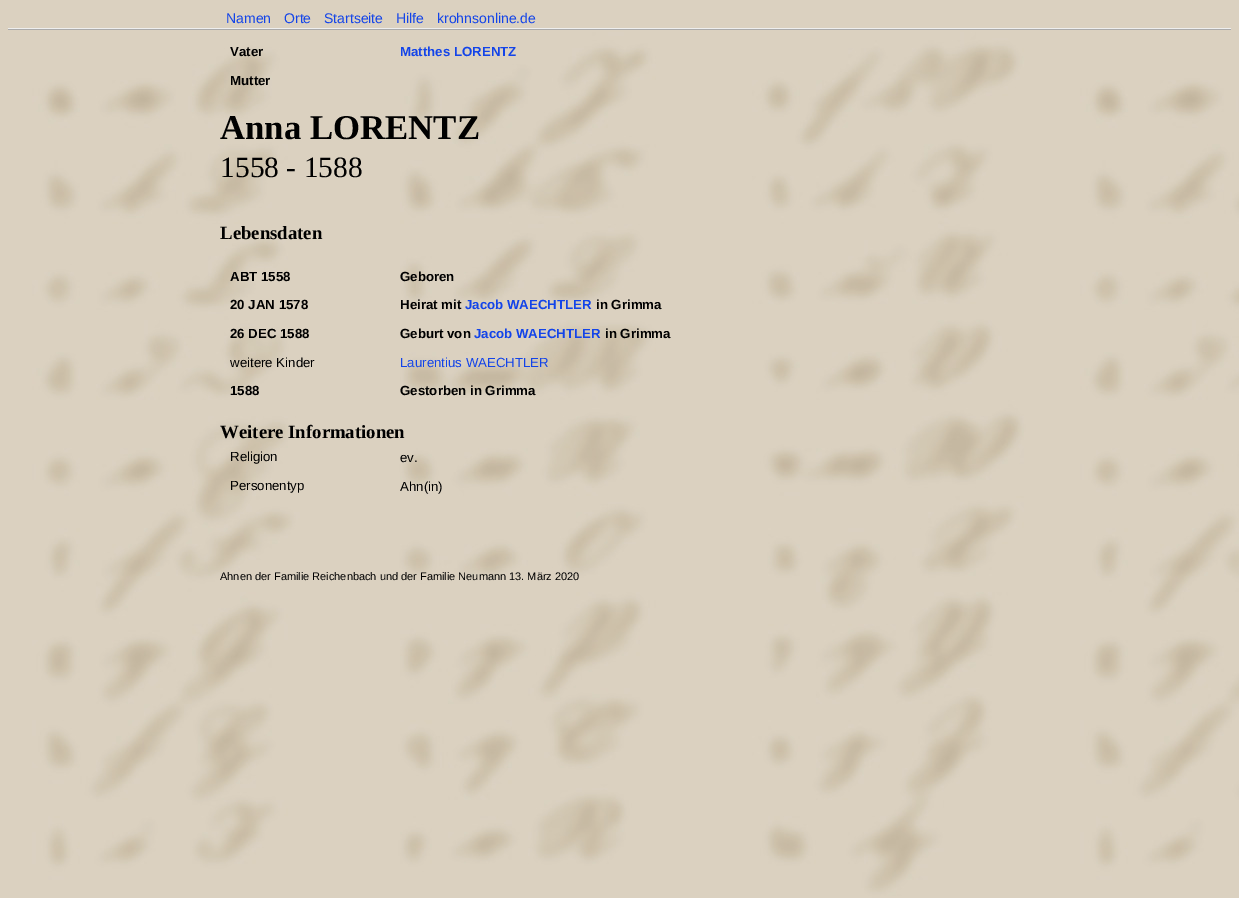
%!PS-Adobe-3.0
%%BoundingBox: 0 0 1239 898
%%LanguageLevel: 3
%%Pages: 1
%%EndComments
%%BeginProlog
/drawimage { 5 dict begin { /h /w /y /x /name } { exch def } forall
  gsave x y translate w h scale
  w h 8 [w 0 0 h 0 0] name (r) file false 3 colorimage grestore end } def
%%EndProlog
%%BeginSetup
<< /PageSize [1239 898] >> setpagedevice
%%EndSetup
%%Page: 1 1
0 898 translate 1 -1 scale
4 setmiterlimit
1 setgray
0 0 1239 898 rectfill
(images/1.raw) 0 0 1239 898 drawimage
0.933 setgray
8 28 1223 1 rectfill
0.667 setgray
8 29 1223 1 rectfill
/LiberationSans-Regular [14 0 0 -14 0 0] selectfont
0.075 0.267 0.914 setrgbcolor
226 23 moveto (Namen) show
284 23 moveto (Orte) show
324 23 moveto (Startseite) show
396 23 moveto (Hilfe) show
437 23 moveto (krohnsonline.de) show
/LiberationSans-Bold [13.25 0 0 -13.25 0 0] selectfont
0 setgray
230 56 moveto (Vater) show
0.075 0.267 0.914 setrgbcolor
400 56 moveto (Matthes LORENTZ) show
0 setgray
230 85 moveto (Mutter) show
/LiberationSerif-Bold [34.75 0 0 -34.75 0 0] selectfont
220 139 moveto (Anna LORENTZ) show
/LiberationSerif-Regular [29.5 0 0 -29.5 0 0] selectfont
220 177 moveto (1558 - 1588) show
/LiberationSerif-Bold [18.75 0 0 -18.75 0 0] selectfont
220 239 moveto (Lebensdaten) show
/LiberationSans-Bold [13.25 0 0 -13.25 0 0] selectfont
230 281 moveto (ABT 1558) show
400 281 moveto (Geboren) show
230 309 moveto (20 JAN 1578) show
400 309 moveto (Heirat mit) show
0.075 0.267 0.914 setrgbcolor
465 309 moveto (Jacob WAECHTLER) show
0 setgray
596 309 moveto (in Grimma) show
230 338 moveto (26 DEC 1588) show
400 338 moveto (Geburt von) show
0.075 0.267 0.914 setrgbcolor
474 338 moveto (Jacob WAECHTLER) show
0 setgray
605 338 moveto (in Grimma) show
/LiberationSans-Regular [13.25 0 0 -13.25 0 0] selectfont
230 367 moveto (weitere Kinder) show
0.075 0.267 0.914 setrgbcolor
400 367 moveto (Laurentius WAECHTLER) show
/LiberationSans-Bold [13.25 0 0 -13.25 0 0] selectfont
0 setgray
230 395 moveto (1588) show
400 395 moveto (Gestorben in Grimma) show
/LiberationSerif-Bold [18.75 0 0 -18.75 0 0] selectfont
220 438 moveto (Weitere Informationen) show
/LiberationSans-Regular [13.25 0 0 -13.25 0 0] selectfont
230 461 moveto (Religion) show
400 462 moveto (ev.) show
230 490 moveto (Personentyp) show
400 491 moveto (Ahn\(in\)) show
/LiberationSans-Regular [11 0 0 -11 0 0] selectfont
220 580 moveto (Ahnen der Familie Reichenbach und der Familie Neumann 13. März 2020) show
showpage
%%EOF
